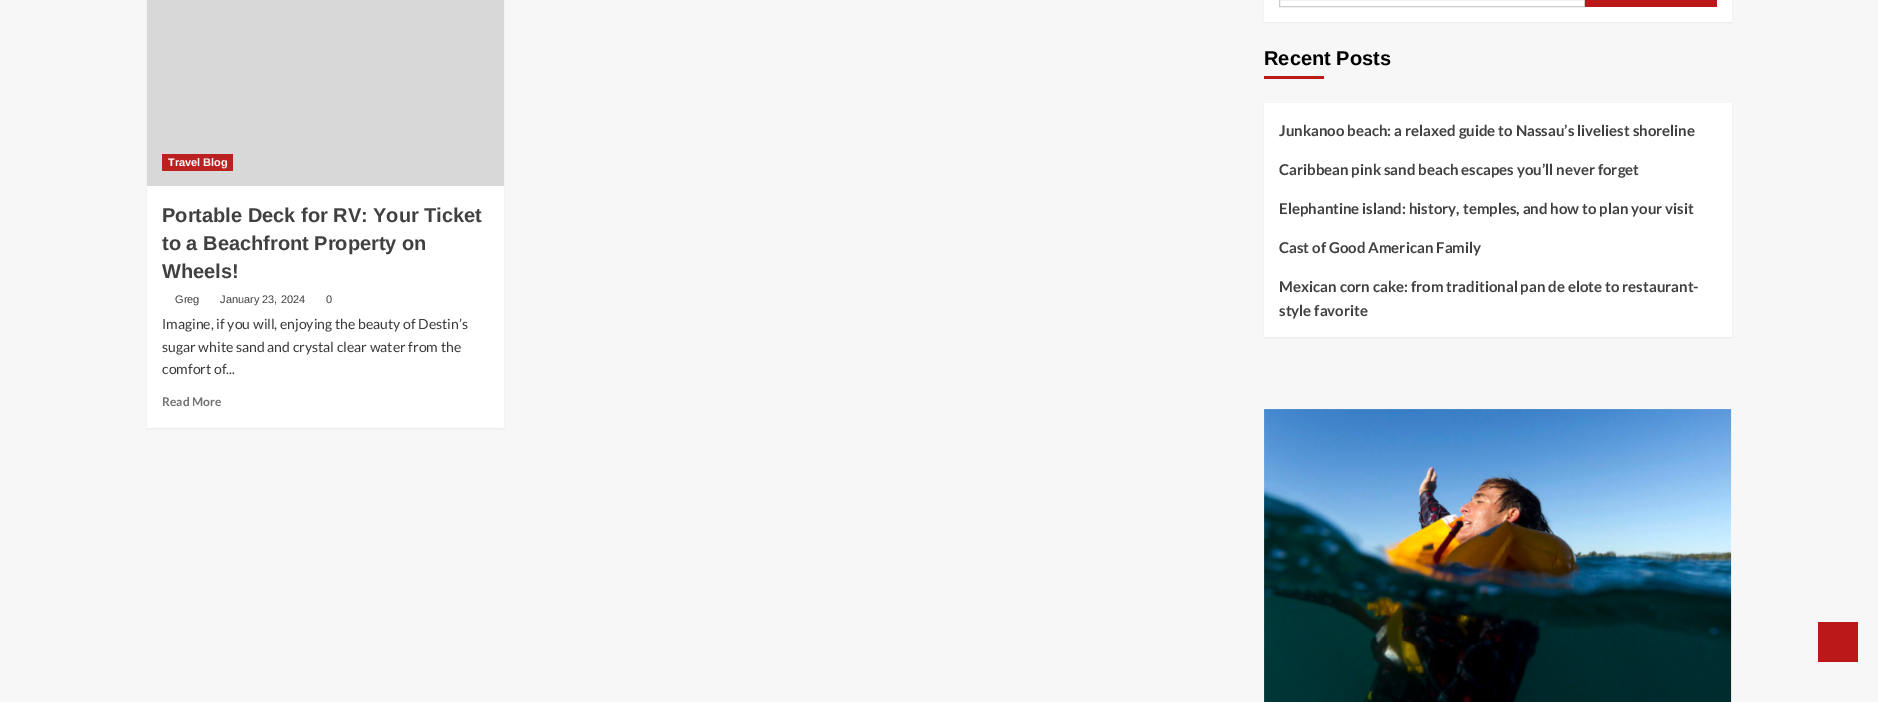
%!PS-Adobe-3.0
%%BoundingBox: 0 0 1878 702
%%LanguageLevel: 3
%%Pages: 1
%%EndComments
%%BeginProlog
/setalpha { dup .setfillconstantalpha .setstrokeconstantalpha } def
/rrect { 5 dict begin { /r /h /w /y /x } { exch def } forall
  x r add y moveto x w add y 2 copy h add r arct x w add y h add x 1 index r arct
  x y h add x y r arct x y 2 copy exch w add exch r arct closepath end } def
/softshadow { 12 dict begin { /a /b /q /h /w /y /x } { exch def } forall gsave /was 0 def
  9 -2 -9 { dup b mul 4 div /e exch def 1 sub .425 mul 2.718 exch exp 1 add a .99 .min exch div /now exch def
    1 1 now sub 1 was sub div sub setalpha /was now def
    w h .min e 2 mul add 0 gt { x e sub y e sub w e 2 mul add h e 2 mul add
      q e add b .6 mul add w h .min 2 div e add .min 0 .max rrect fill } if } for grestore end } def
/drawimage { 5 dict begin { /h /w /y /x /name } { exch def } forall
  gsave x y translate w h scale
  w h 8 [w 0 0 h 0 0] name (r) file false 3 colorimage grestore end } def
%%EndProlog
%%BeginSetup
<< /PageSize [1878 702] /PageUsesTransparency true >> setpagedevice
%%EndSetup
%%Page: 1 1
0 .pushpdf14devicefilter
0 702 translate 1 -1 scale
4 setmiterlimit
0.969 setgray
0 0 1878 702 rectfill
0 setgray
147 -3 357 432 0 1 0.05 softshadow
1 setgray
147 186 357 242 rectfill
0.847 setgray
147 0 357 186 rectfill
0.737 0.129 0.129 setrgbcolor
162 154 71 17 rectfill
0 setgray
1264 -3 468 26 0 1 0.05 softshadow
1 setgray
1264 0 468 22 rectfill
0.8 setgray
1279.5 -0.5 305 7 rectstroke
0.733 0.098 0.098 setrgbcolor
1585 0 132 7 rectfill
1264 76 60 3 rectfill
0 setgray
1264 104 468 234 0 1 0.05 softshadow
1 setgray
1264 103 468 234 rectfill
(images/1.raw) 1264 409 468 293 drawimage
0.733 0.098 0.098 setrgbcolor
1818 622 40 40 rectfill
/LiberationSans-Bold [11 0 0 -11 0 0] selectfont
0.992 setgray
168 166 moveto (Travel Blog) show
/LiberationSans-Bold [20 0 0 -20 0 0] selectfont
0.251 setgray
162 222 moveto (Portable Deck for RV: Your Ticket) show
162 250 moveto (to a Beachfront Property on) show
162 278 moveto (Wheels!) show
/LiberationSans-Regular [11 0 0 -11 0 0] selectfont
175 303 moveto (Greg) show
220 303 moveto (January 23, 2024) show
326 303 moveto (0) show
/Lato-Regular [14 0 0 -14 0 0] selectfont
0.227 setgray
162 329 moveto (Imagine, if you will, enjoying the beauty of Destin’s) show
162 352 moveto (sugar white sand and crystal clear water from the) show
162 374 moveto (comfort of...) show
/Lato-Bold [12 0 0 -12 0 0] selectfont
0.439 setgray
162 406 moveto (Read More) show
/LiberationSans-Bold [20 0 0 -20 0 0] selectfont
0 setgray
1264 65 moveto (Recent Posts) show
/Lato-Bold [15 0 0 -15 0 0] selectfont
0.251 setgray
1279 136 moveto (Junkanoo beach: a relaxed guide to Nassau’s liveliest shoreline) show
1279 175 moveto (Caribbean pink sand beach escapes you’ll never forget) show
1279 214 moveto (Elephantine island: history, temples, and how to plan your visit) show
1279 253 moveto (Cast of Good American Family) show
1279 292 moveto (Mexican corn cake: from traditional pan de elote to restaurant-) show
1279 316 moveto (style favorite) show
.poppdf14devicefilter showpage
%%EOF
